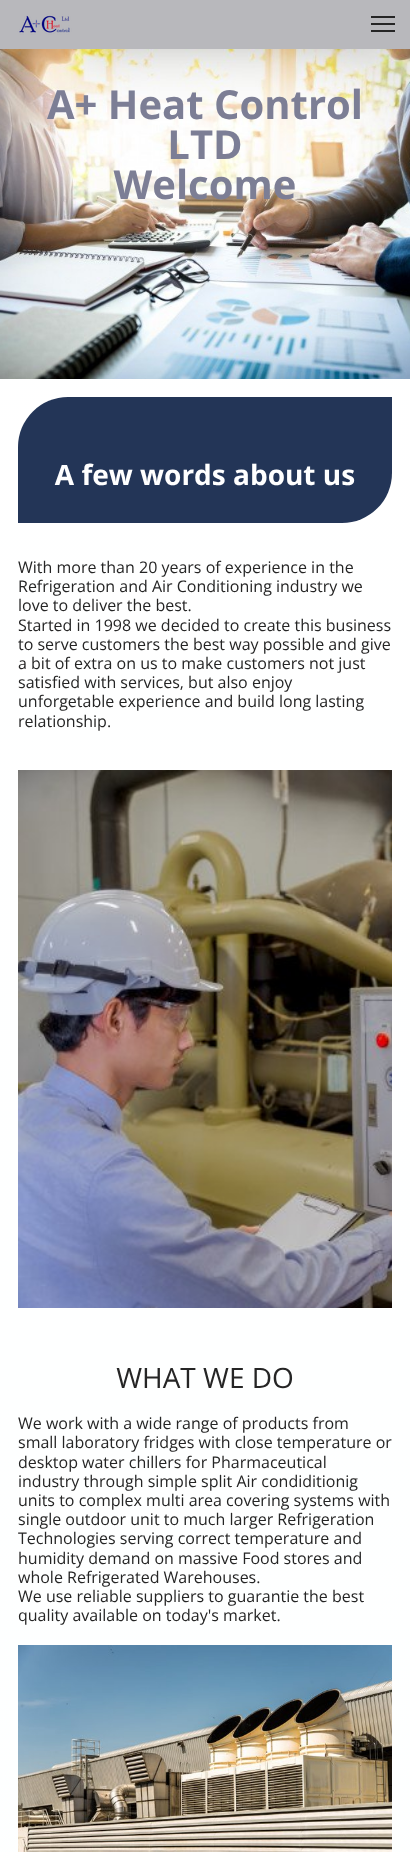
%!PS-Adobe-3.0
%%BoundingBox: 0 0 410 1857
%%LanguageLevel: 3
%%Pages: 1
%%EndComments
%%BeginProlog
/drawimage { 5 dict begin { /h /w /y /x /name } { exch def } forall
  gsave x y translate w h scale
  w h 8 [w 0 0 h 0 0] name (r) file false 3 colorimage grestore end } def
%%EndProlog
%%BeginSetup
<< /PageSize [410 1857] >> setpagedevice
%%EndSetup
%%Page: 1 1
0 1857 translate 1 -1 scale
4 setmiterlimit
1 setgray
0 0 410 1857 rectfill
(images/1.raw) 0 0 410 1852 drawimage
showpage
%%EOF
